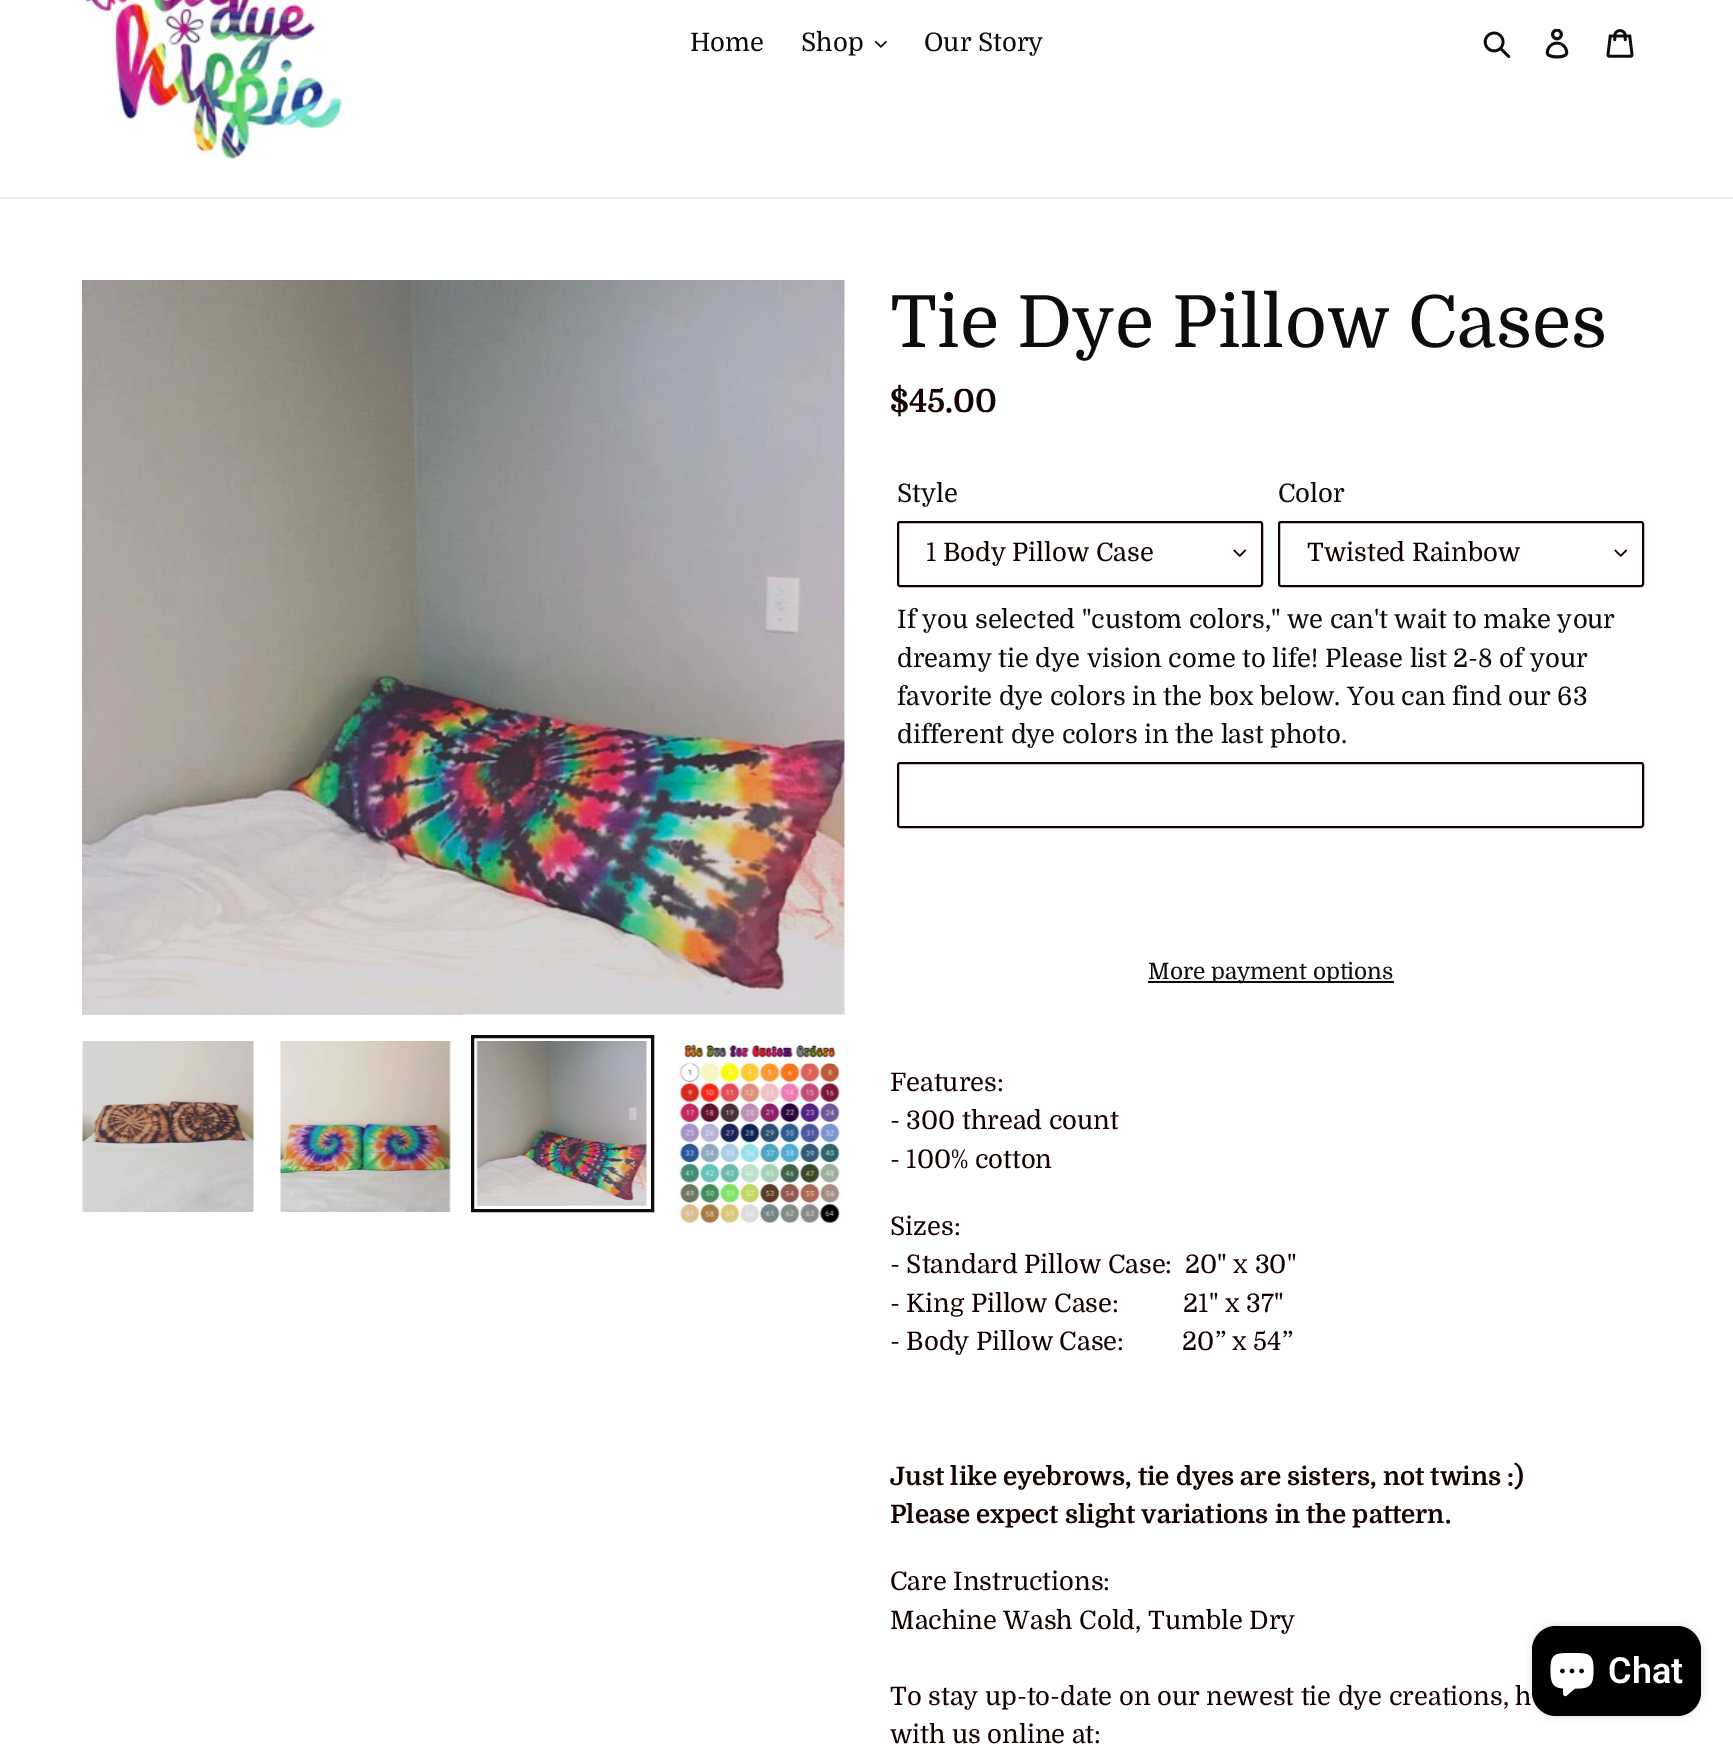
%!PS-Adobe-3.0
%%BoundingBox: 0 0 1733 1747
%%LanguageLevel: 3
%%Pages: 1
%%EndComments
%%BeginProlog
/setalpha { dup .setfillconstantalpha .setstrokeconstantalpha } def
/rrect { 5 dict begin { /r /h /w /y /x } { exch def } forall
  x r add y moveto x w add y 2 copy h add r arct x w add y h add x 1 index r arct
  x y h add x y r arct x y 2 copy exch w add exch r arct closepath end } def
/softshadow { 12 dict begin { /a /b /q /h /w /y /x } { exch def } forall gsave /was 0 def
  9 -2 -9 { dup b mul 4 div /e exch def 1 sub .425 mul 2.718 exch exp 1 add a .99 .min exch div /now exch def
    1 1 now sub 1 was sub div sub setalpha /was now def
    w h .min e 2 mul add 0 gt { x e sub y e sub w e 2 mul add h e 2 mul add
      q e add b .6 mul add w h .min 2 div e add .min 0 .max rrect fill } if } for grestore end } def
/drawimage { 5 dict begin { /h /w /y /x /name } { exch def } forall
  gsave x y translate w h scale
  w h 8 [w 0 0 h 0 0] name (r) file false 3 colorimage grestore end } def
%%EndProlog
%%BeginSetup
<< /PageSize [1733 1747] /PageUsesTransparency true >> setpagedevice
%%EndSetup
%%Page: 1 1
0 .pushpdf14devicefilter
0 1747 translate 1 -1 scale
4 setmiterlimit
1 setgray
0 0 1733 1747 rectfill
0.922 setgray
0 197 1733 2 rectfill
(images/1.raw) 82 0 263 160 drawimage
(images/2.raw) 875 40 12 8 drawimage
(images/3.raw) 1483 31 28 28 drawimage
(images/4.raw) 1545 29 24 30 drawimage
(images/5.raw) 1606 29 28 29 drawimage
(images/6.raw) 82 280 763 735 drawimage
(images/7.raw) 82 1041 172 171 drawimage
(images/8.raw) 280 1041 171 171 drawimage
0.051 setgray
3 setlinewidth
472.5 1036.5 180 174 rectstroke
(images/9.raw) 476 1041 171 165 drawimage
(images/10.raw) 675 1041 169 184 drawimage
(images/11.raw) 1233 549 14 8 drawimage
0.082 0.004 0.004 setrgbcolor
2 setlinewidth
898 522 364 64 2 rrect stroke
(images/11.raw) 1614 549 14 8 drawimage
1279 522 364 64 2 rrect stroke
898 763 745 64 2 rrect stroke
0.051 setgray
1148 981 246 2 rectfill
0 setgray
1532 1626 169 90 24 4 0.15 softshadow
1532 1626 169 90 24 rrect fill
(images/12.raw) 1550 1653 44 44 drawimage
/Domine-Regular [25.5 0 0 -25.5 0 0] selectfont
0.051 setgray
690 51 moveto (Home) show
801 51 moveto (Shop) show
924 51 moveto (Our Story) show
/Domine-Regular [72 0 0 -72 0 0] selectfont
890 347 moveto (Tie Dye Pillow Cases) show
/Domine-Bold [32 0 0 -32 0 0] selectfont
0.082 0.004 0.004 setrgbcolor
890 412 moveto ($45.00) show
/Domine-Regular [25.5 0 0 -25.5 0 0] selectfont
0.051 setgray
897 502 moveto (Style) show
0.082 0.004 0.004 setrgbcolor
926 561 moveto (1 Body Pillow Case) show
0.051 setgray
1278 502 moveto (Color) show
0.082 0.004 0.004 setrgbcolor
1307 561 moveto (Twisted Rainbow) show
0.051 setgray
897 628 moveto (If you selected "custom colors," we can't wait to make your) show
897 667 moveto (dreamy tie dye vision come to life! Please list 2-8 of your) show
897 705 moveto (favorite dye colors in the box below. You can find our 63) show
897 743 moveto (different dye colors in the last photo.) show
/Domine-Regular [22.5 0 0 -22.5 0 0] selectfont
1148 979 moveto (More payment options) show
/Domine-Regular [25.5 0 0 -25.5 0 0] selectfont
0.082 0.004 0.004 setrgbcolor
890 1091 moveto (Features:) show
890 1129 moveto (- 300 thread count) show
890 1168 moveto (- 100% cotton) show
890 1235 moveto (Sizes:) show
890 1273 moveto (- Standard Pillow Case:  20" x 30") show
890 1312 moveto (- King Pillow Case:          21" x 37") show
890 1350 moveto (- Body Pillow Case:         20” x 54”) show
/Domine-Bold [25.5 0 0 -25.5 0 0] selectfont
890 1485 moveto (Just like eyebrows, tie dyes are sisters, not twins :\)) show
890 1523 moveto (Please expect slight variations in the pattern.) show
/Domine-Regular [25.5 0 0 -25.5 0 0] selectfont
890 1590 moveto (Care Instructions:) show
890 1629 moveto (Machine Wash Cold, Tumble Dry) show
890 1705 moveto (To stay up-to-date on our newest tie dye creations, h) show
890 1743 moveto (with us online at:) show
/Roboto-SemiBold [36 0 0 -36 0 0] selectfont
1 setgray
1608 1683 moveto (Chat) show
.poppdf14devicefilter showpage
%%EOF
